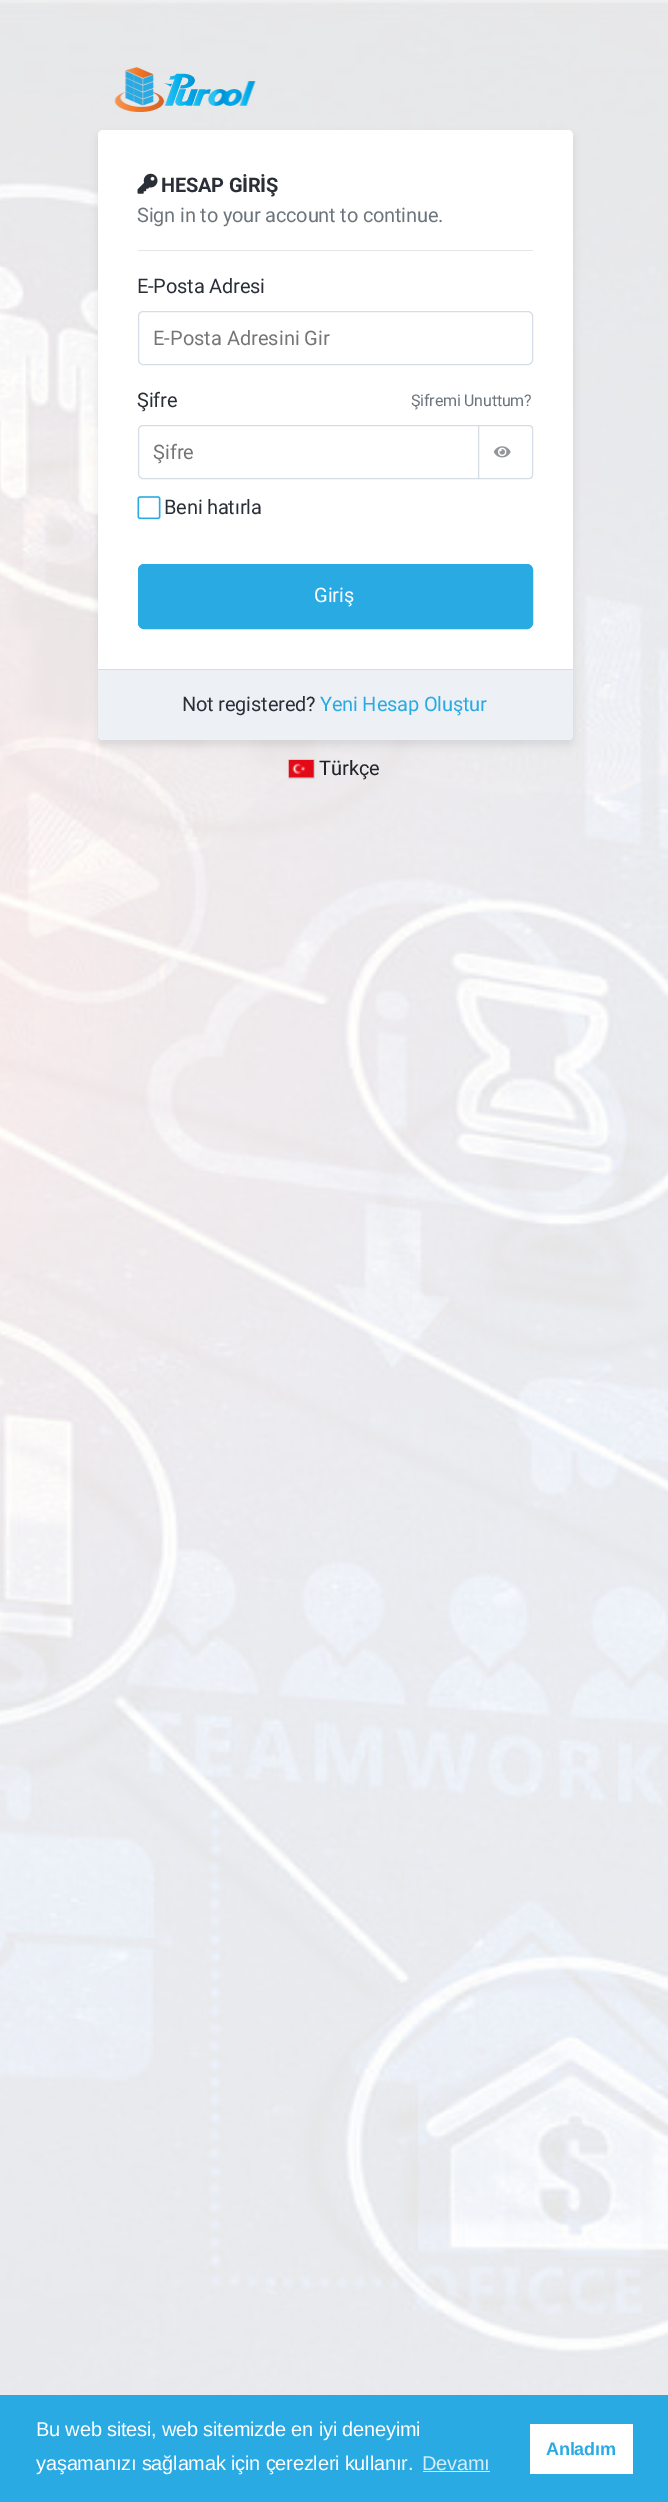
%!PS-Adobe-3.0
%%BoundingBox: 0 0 668 2502
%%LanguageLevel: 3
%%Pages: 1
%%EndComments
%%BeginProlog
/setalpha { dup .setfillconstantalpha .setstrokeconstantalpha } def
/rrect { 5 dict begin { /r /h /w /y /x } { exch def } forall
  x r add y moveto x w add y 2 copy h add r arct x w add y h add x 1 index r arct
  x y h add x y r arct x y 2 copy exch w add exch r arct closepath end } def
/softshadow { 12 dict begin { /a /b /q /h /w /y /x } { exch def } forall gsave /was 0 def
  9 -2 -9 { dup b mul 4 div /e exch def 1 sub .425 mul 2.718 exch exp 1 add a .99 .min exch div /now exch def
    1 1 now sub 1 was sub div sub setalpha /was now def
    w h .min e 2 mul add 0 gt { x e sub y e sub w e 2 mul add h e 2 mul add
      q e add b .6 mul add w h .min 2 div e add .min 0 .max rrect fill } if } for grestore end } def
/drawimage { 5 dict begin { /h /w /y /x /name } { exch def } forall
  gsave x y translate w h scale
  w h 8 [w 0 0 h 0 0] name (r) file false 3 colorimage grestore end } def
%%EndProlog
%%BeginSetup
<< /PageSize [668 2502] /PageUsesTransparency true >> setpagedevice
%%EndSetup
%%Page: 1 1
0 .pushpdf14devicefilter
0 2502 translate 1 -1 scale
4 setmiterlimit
1 setgray
0 0 668 2502 rectfill
(images/1.raw) 0 0 668 2395 drawimage
(images/2.raw) 114 67 142 45 drawimage
0 0.043 0.157 setrgbcolor
98 135 475 610 5 4 0.1 softshadow
1 setgray
98 130 475 610 5 rrect fill
(images/3.raw) 137 173 21 21 drawimage
0.902 setgray
138 250 395 1 rectfill
0.835 0.863 0.898 setrgbcolor
138.5 311.5 394 53 4.5 rrect stroke
newpath 143 425.5 moveto 478.5 425.5 lineto 478.5 478.5 lineto 143 478.5 lineto 140.5 478.5 138.5 476.5 138.5 474 curveto 138.5 430 lineto 138.5 427.5 140.5 425.5 143 425.5 curveto closepath stroke
1 setgray
newpath 478.5 425.5 moveto 529 425.5 lineto 531 425.5 532.5 427 532.5 429 curveto 532.5 475 lineto 532.5 477 531 478.5 529 478.5 curveto 478.5 478.5 lineto closepath gsave fill grestore
0.835 0.863 0.898 setrgbcolor
stroke
(images/4.raw) 493 446 18 12 drawimage
(images/5.raw) 137 496 24 24 drawimage
0.161 0.667 0.89 setrgbcolor
138.5 564.5 394 64 5.5 rrect gsave fill grestore
stroke
0.929 0.941 0.961 setrgbcolor
newpath 98 669 moveto 573 669 lineto 573 735 lineto 573 738 571 740 568 740 curveto 103 740 lineto 100 740 98 738 98 735 curveto closepath fill
0.835 0.863 0.898 setrgbcolor
98 669 475 1 rectfill
0.533 setgray
289 760 25 18 0 0.5 1 softshadow
0.859 setgray
289 760 25 18 rectfill
(images/6.raw) 288 760 26 18 drawimage
0.161 0.667 0.89 setrgbcolor
0 2395 668 107 rectfill
0.831 0.933 0.976 setrgbcolor
423 2471 67 1 rectfill
1 setgray
530 2424 103 50 rectfill
/Roboto-Bold [20 0 0 -20 0 0] selectfont
0.165 0.18 0.212 setrgbcolor
161 192 moveto -0.2 0 (HESAP GİRİŞ) ashow
/Roboto-Regular [20 0 0 -20 0 0] selectfont
0.424 0.459 0.49 setrgbcolor
137 222 moveto -0.2 0 (Sign in to your account to continue.) ashow
0.165 0.18 0.212 setrgbcolor
137 293 moveto -0.2 0 (E-Posta Adresi) ashow
0.459 setgray
153 345 moveto (E-Posta Adresini Gir) show
0.165 0.18 0.212 setrgbcolor
137 407 moveto -0.2 0 (Şifre) ashow
/Roboto-Regular [16 0 0 -16 0 0] selectfont
0.424 0.459 0.49 setrgbcolor
411 406 moveto -0.2 0 (Şifremi Unuttum?) ashow
/Roboto-Regular [20 0 0 -20 0 0] selectfont
0.459 setgray
153 459 moveto (Şifre) show
0.165 0.18 0.212 setrgbcolor
164 514 moveto -0.2 0 (Beni hatırla) ashow
1 setgray
314 602 moveto (Giriş) show
0.165 0.18 0.212 setrgbcolor
182 711 moveto -0.2 0 (Not registered?) ashow
0.161 0.667 0.89 setrgbcolor
320 711 moveto -0.2 0 (Yeni Hesap Oluştur) ashow
0.129 0.145 0.161 setrgbcolor
319 775 moveto (Türkçe) show
/LiberationSans-Regular [20 0 0 -20 0 0] selectfont
1 setgray
36 2436 moveto -0.2 0 (Bu web sitesi, web sitemizde en iyi deneyimi) ashow
36 2470 moveto -0.2 0 (yaşamanızı sağlamak için çerezleri kullanır.) ashow
0.831 0.933 0.976 setrgbcolor
422 2470 moveto -0.2 0 (Devamı) ashow
/LiberationSans-Bold [18 0 0 -18 0 0] selectfont
0.161 0.667 0.89 setrgbcolor
546 2455 moveto -0.2 0 (Anladım) ashow
.poppdf14devicefilter showpage
%%EOF
